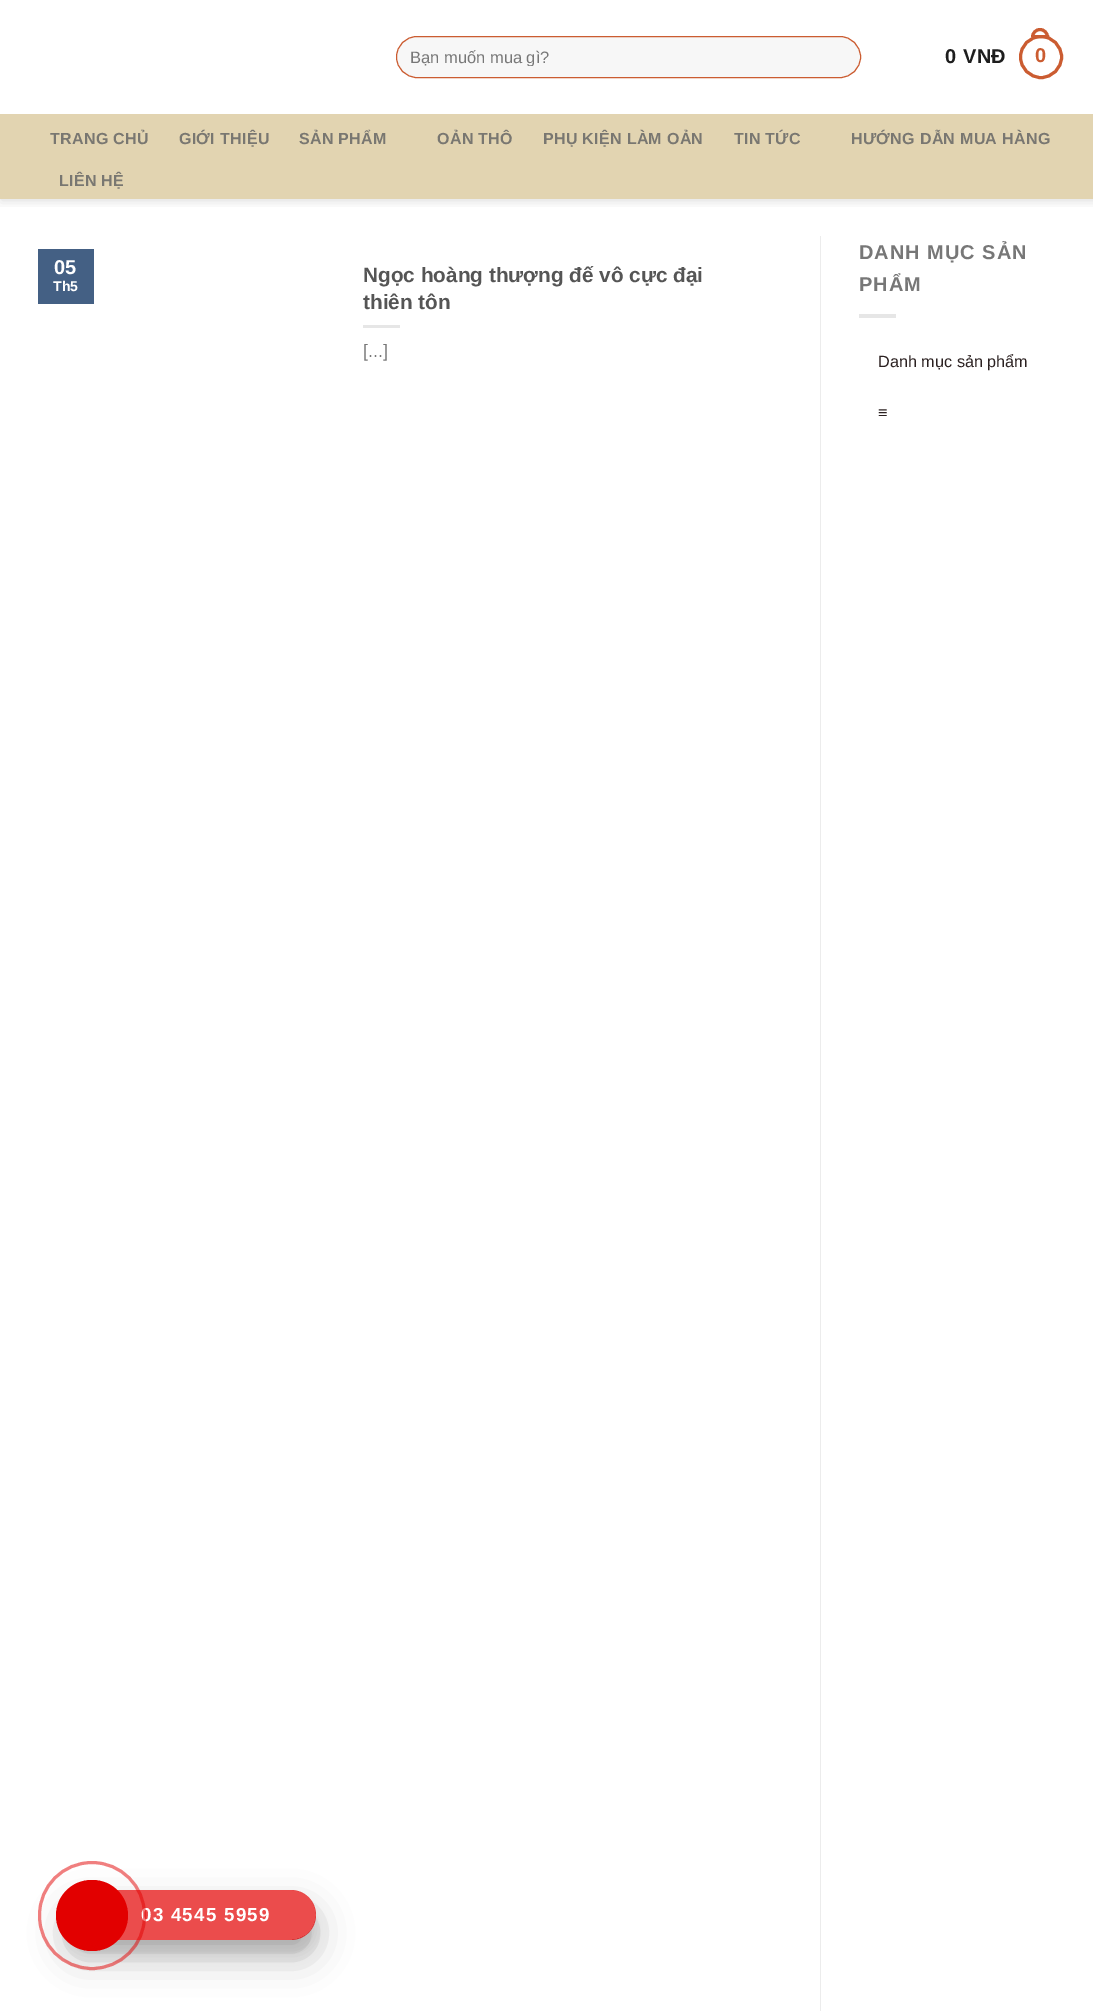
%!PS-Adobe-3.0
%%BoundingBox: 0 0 1093 2011
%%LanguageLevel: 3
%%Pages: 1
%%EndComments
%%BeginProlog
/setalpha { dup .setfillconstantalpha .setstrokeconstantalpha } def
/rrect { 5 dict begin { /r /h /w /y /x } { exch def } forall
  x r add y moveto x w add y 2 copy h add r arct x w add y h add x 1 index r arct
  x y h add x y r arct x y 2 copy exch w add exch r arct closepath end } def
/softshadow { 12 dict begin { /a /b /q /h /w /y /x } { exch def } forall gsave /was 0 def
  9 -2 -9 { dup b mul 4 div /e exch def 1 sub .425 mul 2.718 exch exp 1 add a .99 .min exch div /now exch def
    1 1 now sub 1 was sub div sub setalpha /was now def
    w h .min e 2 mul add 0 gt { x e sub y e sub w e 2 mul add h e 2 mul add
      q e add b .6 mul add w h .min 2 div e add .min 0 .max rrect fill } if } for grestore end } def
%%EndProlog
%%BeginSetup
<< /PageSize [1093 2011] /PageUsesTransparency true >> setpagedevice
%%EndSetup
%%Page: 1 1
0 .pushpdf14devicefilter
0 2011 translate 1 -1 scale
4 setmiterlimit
1 setgray
0 0 1093 2011 rectfill
gsave
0 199 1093 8 rectclip
0 setgray
1 1 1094 199 0 6 0.15 softshadow
grestore
0.969 setgray
396.5 36.5 464 41 20.5 rrect gsave fill grestore
0.796 0.361 0.192 setrgbcolor
stroke
3 setlinewidth
newpath 1041 57 20.5 0 360 arc closepath stroke
newpath 1040 29.5 moveto 1044 29.5 1047.5 33 1047.5 37 curveto 1047.5 36.5 lineto 1032.5 36.5 lineto 1032.5 37 lineto 1032.5 33 1036 29.5 1040 29.5 curveto closepath stroke
0.886 0.831 0.694 setrgbcolor
0 114 1093 85 rectfill
0.267 0.376 0.518 setrgbcolor
38 249 56 55 rectfill
0.902 setgray
363 325 37 3 rectfill
0.925 setgray
820 236 1 1775 rectfill
0.902 setgray
859 314 37 4 rectfill
gsave
newpath 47 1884 moveto 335 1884 lineto 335 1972 lineto 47 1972 lineto closepath 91 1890 moveto 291 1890 lineto 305 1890 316 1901 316 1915 curveto 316 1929 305 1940 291 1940 curveto 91 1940 lineto 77 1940 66 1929 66 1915 curveto 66 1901 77 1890 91 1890 curveto closepath eoclip newpath
0 setgray
66 1903 250 50 25 6 0.1 softshadow
grestore
gsave
newpath 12 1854 moveto 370 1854 lineto 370 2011 lineto 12 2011 lineto closepath 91 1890 moveto 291 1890 lineto 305 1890 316 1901 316 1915 curveto 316 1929 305 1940 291 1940 curveto 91 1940 lineto 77 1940 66 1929 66 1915 curveto 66 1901 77 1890 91 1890 curveto closepath eoclip newpath
0 setgray
66 1908 250 50 25 17.5 0.25 softshadow
grestore
0.7 setalpha
0.886 0 0 setrgbcolor
66 1890 250 50 25 rrect fill
gsave
410 48 433 18 rectclip
/LiberationSans-Regular [16.5 0 0 -16.5 0 0] selectfont
1 setalpha
0.467 setgray
410 63 moveto (Bạn muốn mua gì?) show
grestore
/LiberationSans-Bold [20 0 0 -20 0 0] selectfont
1 setalpha
0.118 setgray
945 63 moveto 0.5 0 (0 VNĐ) ashow
0.796 0.361 0.192 setrgbcolor
1035 62 moveto 0.5 0 (0) ashow
/LiberationSans-Bold [16 0 0 -16 0 0] selectfont
0.475 0.467 0.443 setrgbcolor
50 144 moveto 0.3 0 (TRANG CHỦ) ashow
179 144 moveto 0.3 0 (GIỚI THIỆU) ashow
299 144 moveto 0.3 0 (SẢN PHẨM) ashow
437 144 moveto 0.3 0 (OẢN THÔ) ashow
543 144 moveto 0.3 0 (PHỤ KIỆN LÀM OẢN) ashow
734 144 moveto 0.3 0 (TIN TỨC) ashow
851 144 moveto 0.3 0 (HƯỚNG DẪN MUA HÀNG) ashow
59 186 moveto 0.3 0 (LIÊN HỆ) ashow
/LiberationSans-Bold [20 0 0 -20 0 0] selectfont
1 setgray
54 274 moveto (05) show
/LiberationSans-Bold [14 0 0 -14 0 0] selectfont
53 291 moveto (Th5) show
/LiberationSans-Bold [20.75 0 0 -20.75 0 0] selectfont
0.333 setgray
363 282 moveto (Ngọc hoàng thượng đế vô cực đại) show
363 309 moveto (thiên tôn) show
/LiberationSans-Regular [18 0 0 -18 0 0] selectfont
0.467 setgray
363 357 moveto ([...]) show
/LiberationSans-Bold [20 0 0 -20 0 0] selectfont
859 259 moveto 1 0 (DANH MỤC SẢN) ashow
859 291 moveto 1 0 (PHẨM) ashow
/LiberationSans-Regular [16.25 0 0 -16.25 0 0] selectfont
0.169 0.129 0.129 setrgbcolor
878 367 moveto (Danh mục sản phẩm) show
878 418 moveto (≡) show
/LiberationSans-Bold [18.75 0 0 -18.75 0 0] selectfont
1 setgray
141 1921 moveto 1.25 0 (03 4545 5959) ashow
0.5 setalpha
0.886 0 0 setrgbcolor
39.5 1862.5 105 106 52.5 rrect stroke
1 setalpha
56 1880 72 71 35.5 rrect fill
.poppdf14devicefilter showpage
%%EOF
